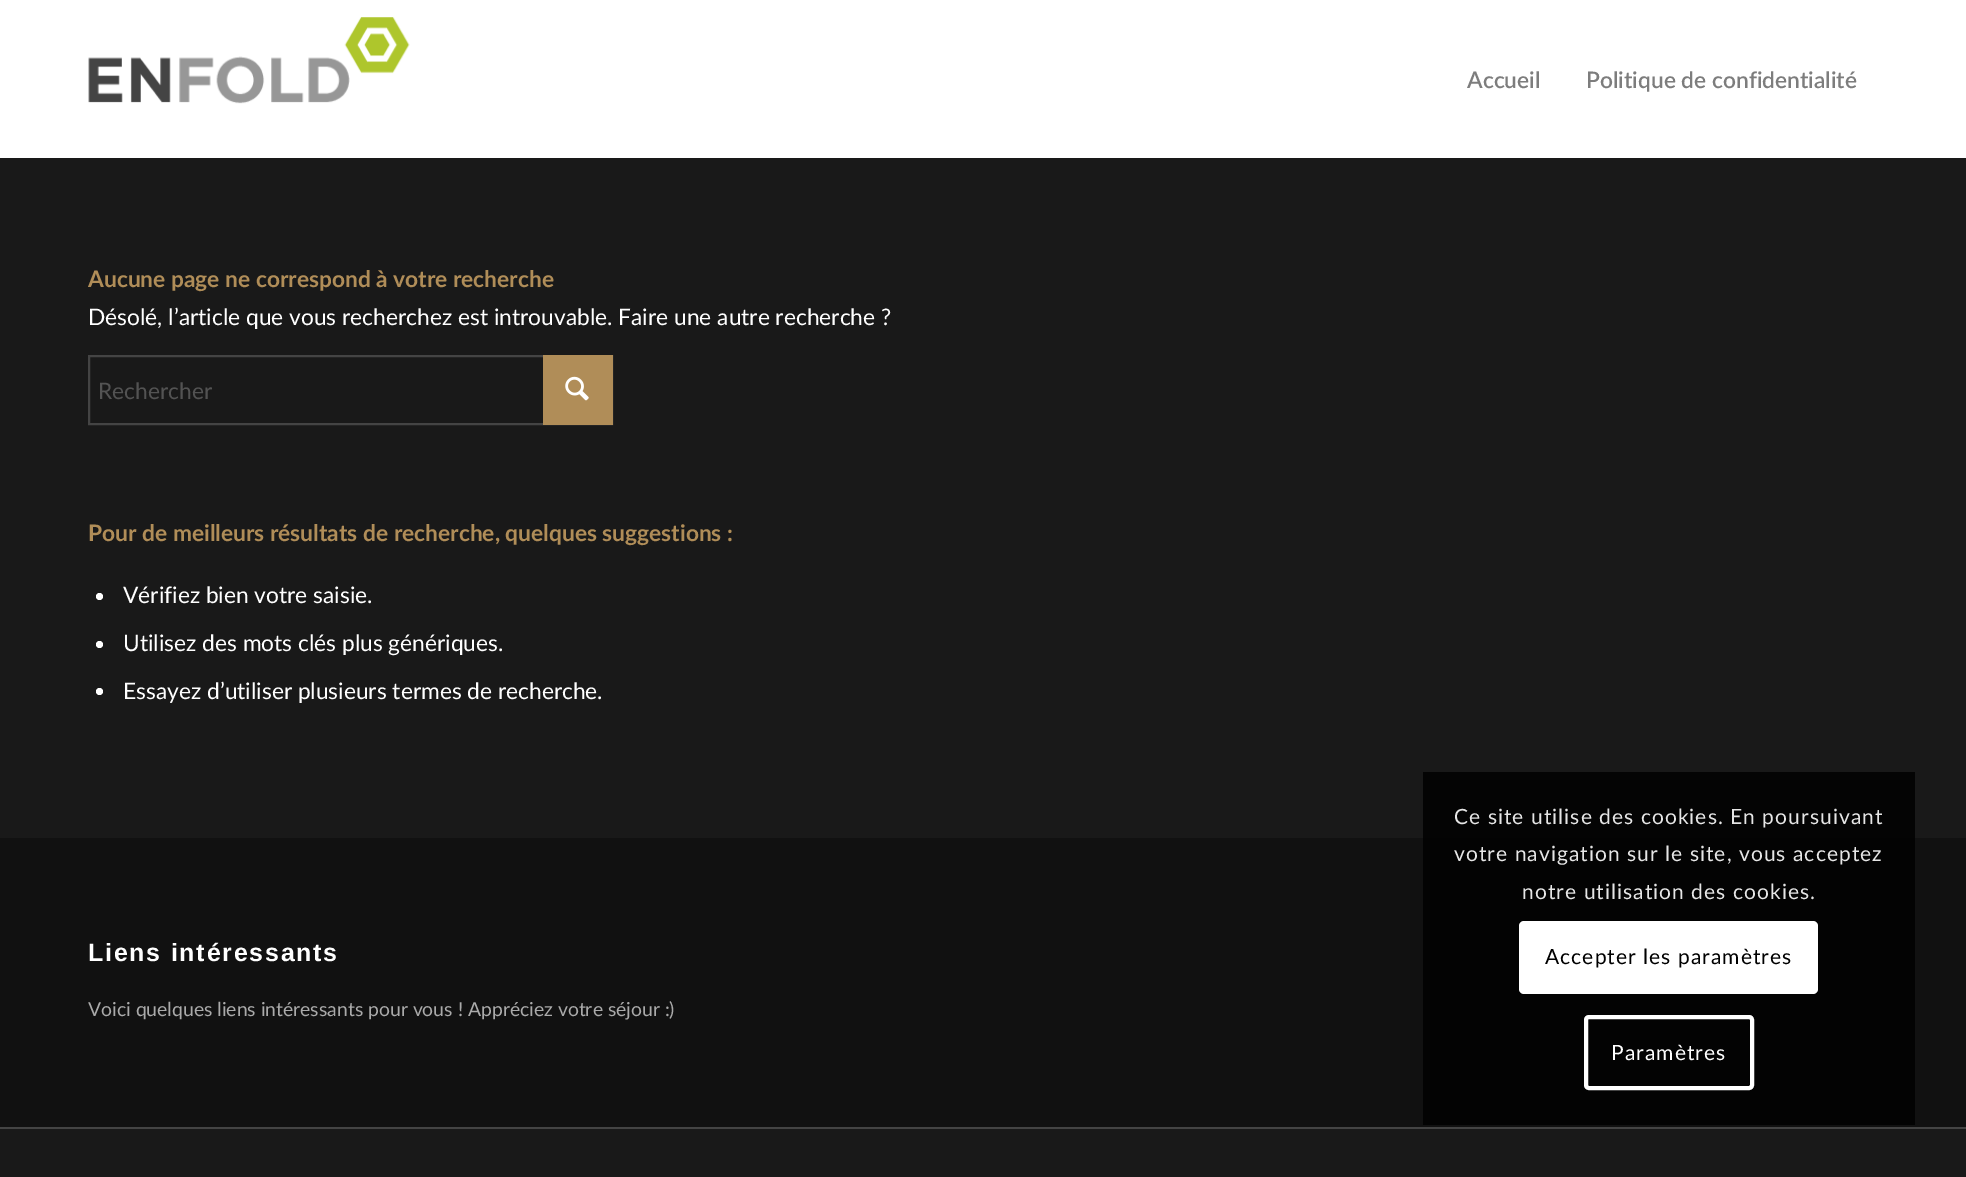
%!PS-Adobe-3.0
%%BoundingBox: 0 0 1966 1177
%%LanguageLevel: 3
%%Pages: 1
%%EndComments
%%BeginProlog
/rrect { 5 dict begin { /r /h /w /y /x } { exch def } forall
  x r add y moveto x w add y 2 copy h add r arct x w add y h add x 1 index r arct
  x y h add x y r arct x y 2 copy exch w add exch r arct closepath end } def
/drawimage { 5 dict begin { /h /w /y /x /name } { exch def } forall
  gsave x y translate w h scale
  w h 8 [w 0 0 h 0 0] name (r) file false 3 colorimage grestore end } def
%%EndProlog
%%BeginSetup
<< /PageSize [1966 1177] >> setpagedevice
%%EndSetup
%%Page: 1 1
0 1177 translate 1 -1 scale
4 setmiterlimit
0.098 setgray
0 0 1966 1177 rectfill
1 setgray
0 0 1966 158 rectfill
(images/1.raw) 88 17 322 87 drawimage
0.016 setgray
1423 772 492 66 rectfill
0.267 setgray
2 setlinewidth
89 356 523 68 rectstroke
0.69 0.553 0.345 setrgbcolor
543 355 70 70 rectfill
(images/2.raw) 565 376 24 25 drawimage
1 setgray
newpath 99.5 596.5 3.5 0 360 arc closepath fill
newpath 99.5 644.5 3.5 0 360 arc closepath fill
newpath 99.5 691.5 3.5 0 360 arc closepath fill
0.067 setgray
0 838 1966 289 rectfill
0.012 setgray
1423 838 492 287 rectfill
0.267 setgray
0 1127 1966 2 rectfill
1 setgray
1519 921 299 73 5 rrect fill
4 setlinewidth
1586 1017 166 71 3 rrect stroke
/Lato-SemiBold [22.75 0 0 -22.75 0 0] selectfont
0.49 setgray
1467 88 moveto (Accueil) show
1586 88 moveto (Politique de confidentialité) show
/Lato-Bold [22.75 0 0 -22.75 0 0] selectfont
0.69 0.553 0.345 setrgbcolor
88 287 moveto (Aucune page ne correspond à votre recherche) show
/Lato-Regular [22.75 0 0 -22.75 0 0] selectfont
1 setgray
88 325 moveto (Désolé, l’article que vous recherchez est introuvable. Faire une autre recherche ?) show
0.325 setgray
98 399 moveto (Rechercher) show
/Lato-Bold [22.75 0 0 -22.75 0 0] selectfont
0.69 0.553 0.345 setrgbcolor
88 541 moveto (Pour de meilleurs résultats de recherche, quelques suggestions :) show
/Lato-Regular [22.75 0 0 -22.75 0 0] selectfont
1 setgray
123 603 moveto (Vérifiez bien votre saisie.) show
123 651 moveto (Utilisez des mots clés plus génériques.) show
123 699 moveto (Essayez d’utiliser plusieurs termes de recherche.) show
/LiberationSans-Bold [25 0 0 -25 0 0] selectfont
88 961 moveto 1.75 0 (Liens intéressants) ashow
/Lato-Regular [19.35 0 0 -19.35 0 0] selectfont
0.667 setgray
88 1016 moveto (Voici quelques liens intéressants pour vous ! Appréciez votre séjour :\)) show
/Lato-Regular [21 0 0 -21 0 0] selectfont
0.902 setgray
1454 824 moveto 1.05 0 (Ce site utilise des cookies. En poursuivant) ashow
1454 861 moveto 1.05 0 (votre navigation sur le site, vous acceptez) ashow
1522 899 moveto 1.05 0 (notre utilisation des cookies.) ashow
0 setgray
1545 964 moveto 1.05 0 (Accepter les paramètres) ashow
1 setgray
1611 1060 moveto 1.05 0 (Paramètres) ashow
showpage
%%EOF
